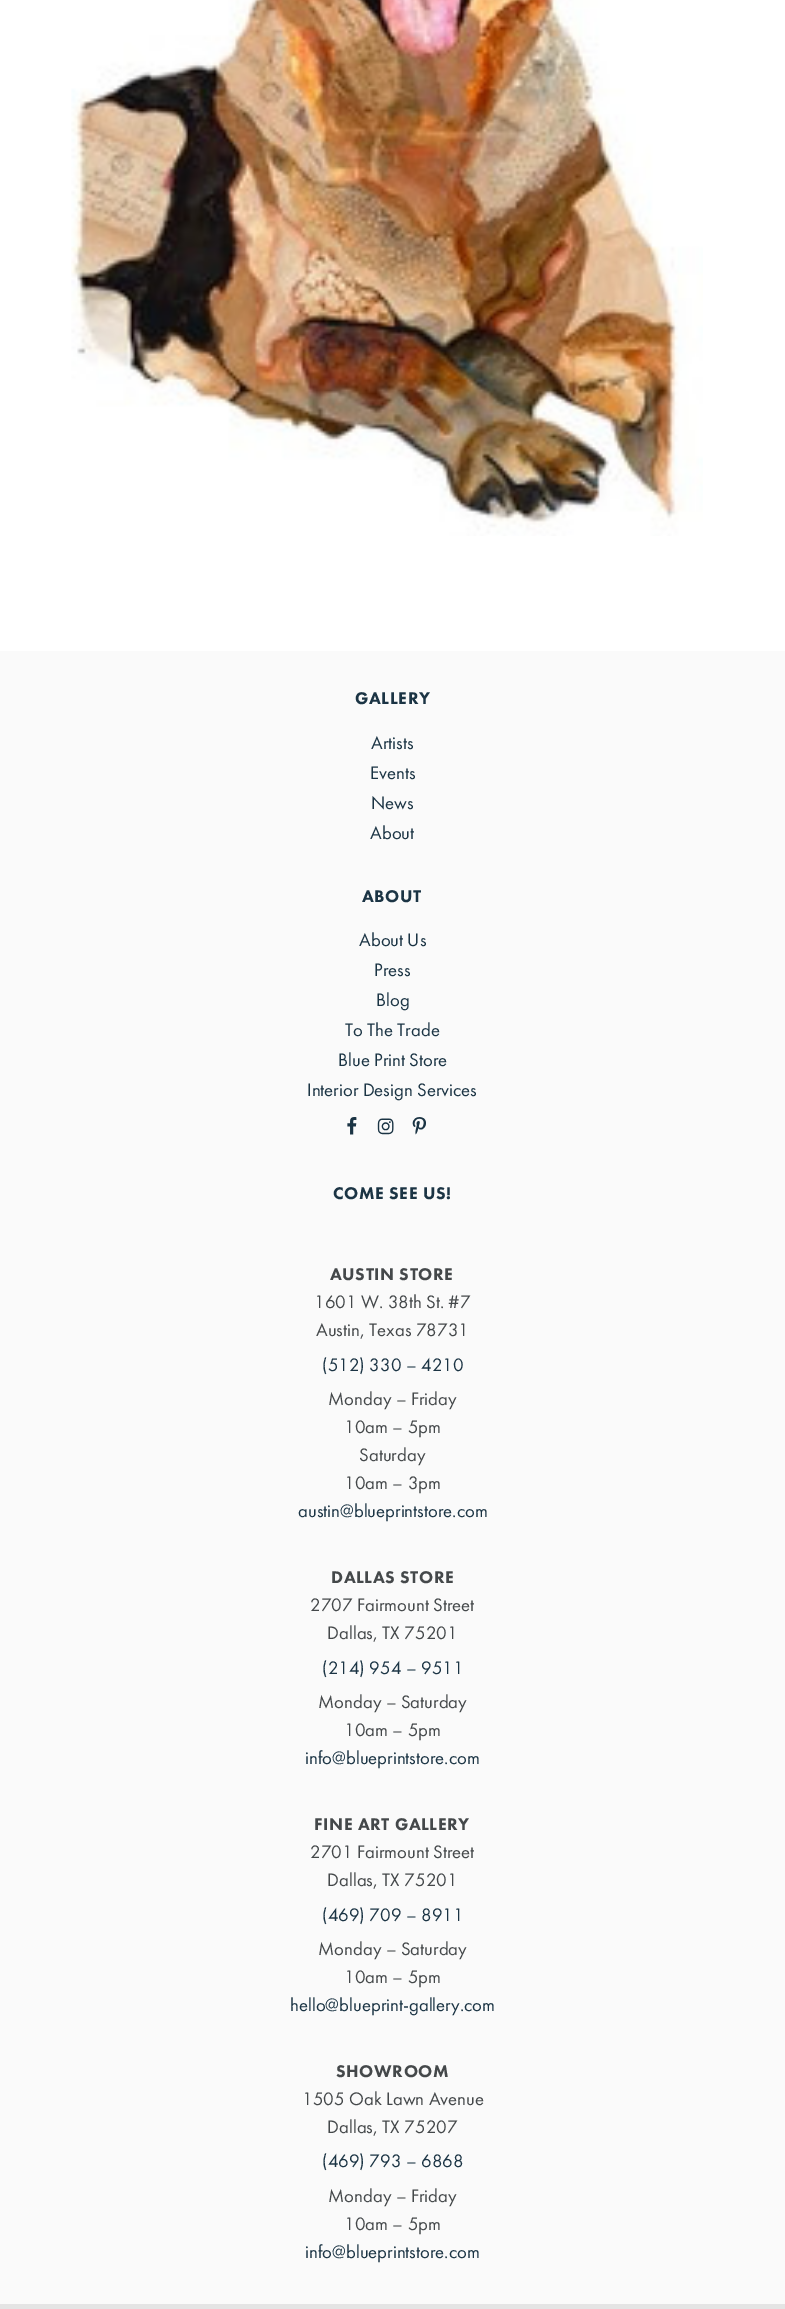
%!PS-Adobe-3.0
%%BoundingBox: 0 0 785 2309
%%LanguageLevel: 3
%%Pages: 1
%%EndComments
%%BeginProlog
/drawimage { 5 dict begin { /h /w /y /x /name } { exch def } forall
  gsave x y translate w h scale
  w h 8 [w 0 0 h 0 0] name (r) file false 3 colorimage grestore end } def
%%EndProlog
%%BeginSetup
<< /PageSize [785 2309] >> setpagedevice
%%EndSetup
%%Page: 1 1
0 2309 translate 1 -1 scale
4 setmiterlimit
1 setgray
0 0 785 2309 rectfill
(images/1.raw) 71 0 632 536 drawimage
0.98 setgray
0 651 785 1653 rectfill
(images/2.raw) 347 1117 10 18 drawimage
(images/3.raw) 377 1118 17 17 drawimage
(images/4.raw) 412 1117 14 18 drawimage
0.894 setgray
0 2304 785 5 rectfill
/FuturaPT-Black [17.5 0 0 -17.5 0 0] selectfont
0.106 0.204 0.267 setrgbcolor
355 704 moveto 0.6 0 (GALLERY) ashow
/FuturaPT-Regular [18.75 0 0 -18.75 0 0] selectfont
371 749 moveto (Artists) show
370 779 moveto (Events) show
371 809 moveto (News) show
370 839 moveto (About) show
/FuturaPT-Black [17.5 0 0 -17.5 0 0] selectfont
362 902 moveto 0.6 0 (ABOUT) ashow
/FuturaPT-Regular [18.75 0 0 -18.75 0 0] selectfont
359 946 moveto (About Us) show
374 976 moveto (Press) show
376 1006 moveto (Blog) show
345 1036 moveto (To The Trade) show
338 1066 moveto (Blue Print Store) show
307 1096 moveto (Interior Design Services) show
/FuturaPT-Black [17.5 0 0 -17.5 0 0] selectfont
333 1199 moveto 0.6 0 (COME SEE US!) ashow
0.267 0.282 0.29 setrgbcolor
330 1280 moveto 0.6 0 (AUSTIN STORE) ashow
/FuturaPT-Regular [18.75 0 0 -18.75 0 0] selectfont
314 1308 moveto (1601 W. 38th St. #7) show
316 1336 moveto (Austin, Texas 78731) show
0.106 0.204 0.267 setrgbcolor
322 1371 moveto (\(512\) 330 – 4210) show
0.267 0.282 0.29 setrgbcolor
328 1405 moveto (Monday – Friday) show
344 1433 moveto (10am – 5pm) show
359 1461 moveto (Saturday) show
344 1489 moveto (10am – 3pm) show
0.106 0.204 0.267 setrgbcolor
298 1517 moveto (austin@blueprintstore.com) show
/FuturaPT-Black [17.5 0 0 -17.5 0 0] selectfont
0.267 0.282 0.29 setrgbcolor
331 1583 moveto 0.6 0 (DALLAS STORE) ashow
/FuturaPT-Regular [18.75 0 0 -18.75 0 0] selectfont
310 1611 moveto (2707 Fairmount Street) show
327 1639 moveto (Dallas, TX 75201) show
0.106 0.204 0.267 setrgbcolor
322 1674 moveto (\(214\) 954 – 9511) show
0.267 0.282 0.29 setrgbcolor
318 1708 moveto (Monday – Saturday) show
344 1736 moveto (10am – 5pm) show
0.106 0.204 0.267 setrgbcolor
305 1764 moveto (info@blueprintstore.com) show
/FuturaPT-Black [17.5 0 0 -17.5 0 0] selectfont
0.267 0.282 0.29 setrgbcolor
314 1830 moveto 0.6 0 (FINE ART GALLERY) ashow
/FuturaPT-Regular [18.75 0 0 -18.75 0 0] selectfont
310 1858 moveto (2701 Fairmount Street) show
327 1886 moveto (Dallas, TX 75201) show
0.106 0.204 0.267 setrgbcolor
322 1921 moveto (\(469\) 709 – 8911) show
0.267 0.282 0.29 setrgbcolor
318 1955 moveto (Monday – Saturday) show
344 1983 moveto (10am – 5pm) show
0.106 0.204 0.267 setrgbcolor
290 2011 moveto (hello@blueprint-gallery.com) show
/FuturaPT-Black [17.5 0 0 -17.5 0 0] selectfont
0.267 0.282 0.29 setrgbcolor
336 2077 moveto 0.6 0 (SHOWROOM) ashow
/FuturaPT-Regular [18.75 0 0 -18.75 0 0] selectfont
302 2105 moveto (1505 Oak Lawn Avenue) show
327 2133 moveto (Dallas, TX 75207) show
0.106 0.204 0.267 setrgbcolor
322 2167 moveto (\(469\) 793 – 6868) show
0.267 0.282 0.29 setrgbcolor
328 2202 moveto (Monday – Friday) show
344 2230 moveto (10am – 5pm) show
0.106 0.204 0.267 setrgbcolor
305 2258 moveto (info@blueprintstore.com) show
showpage
%%EOF
